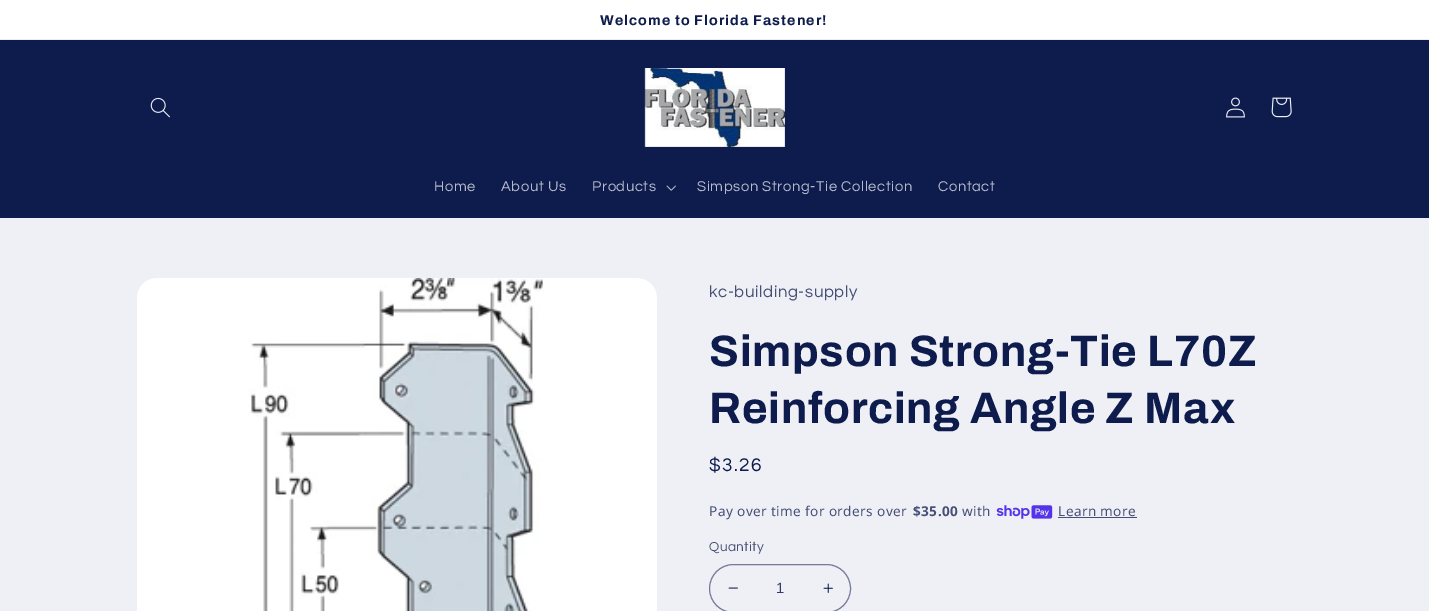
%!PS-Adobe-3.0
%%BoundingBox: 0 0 1429 611
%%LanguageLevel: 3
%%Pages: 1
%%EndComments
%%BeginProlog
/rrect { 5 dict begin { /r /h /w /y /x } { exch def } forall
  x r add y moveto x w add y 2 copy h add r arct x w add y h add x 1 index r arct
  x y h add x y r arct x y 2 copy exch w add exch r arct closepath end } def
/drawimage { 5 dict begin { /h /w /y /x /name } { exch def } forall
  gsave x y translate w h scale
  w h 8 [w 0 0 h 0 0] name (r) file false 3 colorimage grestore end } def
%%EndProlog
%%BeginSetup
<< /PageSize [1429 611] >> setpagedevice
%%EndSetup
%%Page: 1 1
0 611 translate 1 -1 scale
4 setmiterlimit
0.937 0.941 0.961 setrgbcolor
0 0 1429 611 rectfill
1 setgray
0 0 1429 39 rectfill
0.925 0.929 0.945 setrgbcolor
0 39 1429 1 rectfill
0.055 0.106 0.302 setrgbcolor
0 40 1429 178 rectfill
(images/1.raw) 150 97 20 21 drawimage
(images/2.raw) 644 68 141 79 drawimage
(images/3.raw) 1226 97 19 21 drawimage
(images/4.raw) 1271 97 21 21 drawimage
(images/5.raw) 666 185 10 6 drawimage
(images/6.raw) 137 278 520 333 drawimage
(images/7.raw) 996 505 57 14 drawimage
0.275 0.314 0.467 setrgbcolor
1058 517 79 1 rectfill
(images/8.raw) 728 587 10 2 drawimage
(images/9.raw) 823 583 10 10 drawimage
0.451 0.482 0.6 setrgbcolor
709.5 564.5 141 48 24 rrect stroke
/Archivo-Bold [14.25 0 0 -14.25 0 0] selectfont
0.055 0.106 0.302 setrgbcolor
600 25 moveto 1.05 0 (Welcome to Florida Fastener!) ashow
/Questrial-Regular [14.75 0 0 -14.75 0 0] selectfont
0.718 0.733 0.796 setrgbcolor
434 191 moveto 0.6 0 (Home) ashow
501 191 moveto 0.6 0 (About Us) ashow
592 191 moveto 0.6 0 (Products) ashow
697 191 moveto 0.6 0 (Simpson Strong-Tie Collection) ashow
938 191 moveto 0.6 0 (Contact) ashow
/Questrial-Regular [16.75 0 0 -16.75 0 0] selectfont
0.275 0.314 0.467 setrgbcolor
709 297 moveto 0.6 0 (kc-building-supply) ashow
/Archivo-Bold [44 0 0 -44 0 0] selectfont
0.055 0.106 0.302 setrgbcolor
709 366 moveto 0.7 0 (Simpson Strong-Tie L70Z) ashow
709 423 moveto 0.7 0 (Reinforcing Angle Z Max) ashow
/Questrial-Regular [19 0 0 -19 0 0] selectfont
709 471 moveto 1.5 0 ($3.26) ashow
/NotoSans-Regular [13.6 0 0 -13.6 0 0] selectfont
0.275 0.314 0.467 setrgbcolor
709 516 moveto 0.4 0 (Pay over time for orders over) ashow
/NotoSans-Bold [13.6 0 0 -13.6 0 0] selectfont
913 516 moveto 0.4 0 ($35.00) ashow
/NotoSans-Regular [13.6 0 0 -13.6 0 0] selectfont
962 516 moveto 0.4 0 (with) ashow
1058 516 moveto 0.4 0 (Learn more) ashow
/Questrial-Regular [13.6 0 0 -13.6 0 0] selectfont
709 551 moveto 0.4 0 (Quantity) ashow
/LiberationSans-Regular [14.75 0 0 -14.75 0 0] selectfont
0.188 0.231 0.4 setrgbcolor
776 593 moveto (1) show
showpage
%%EOF
